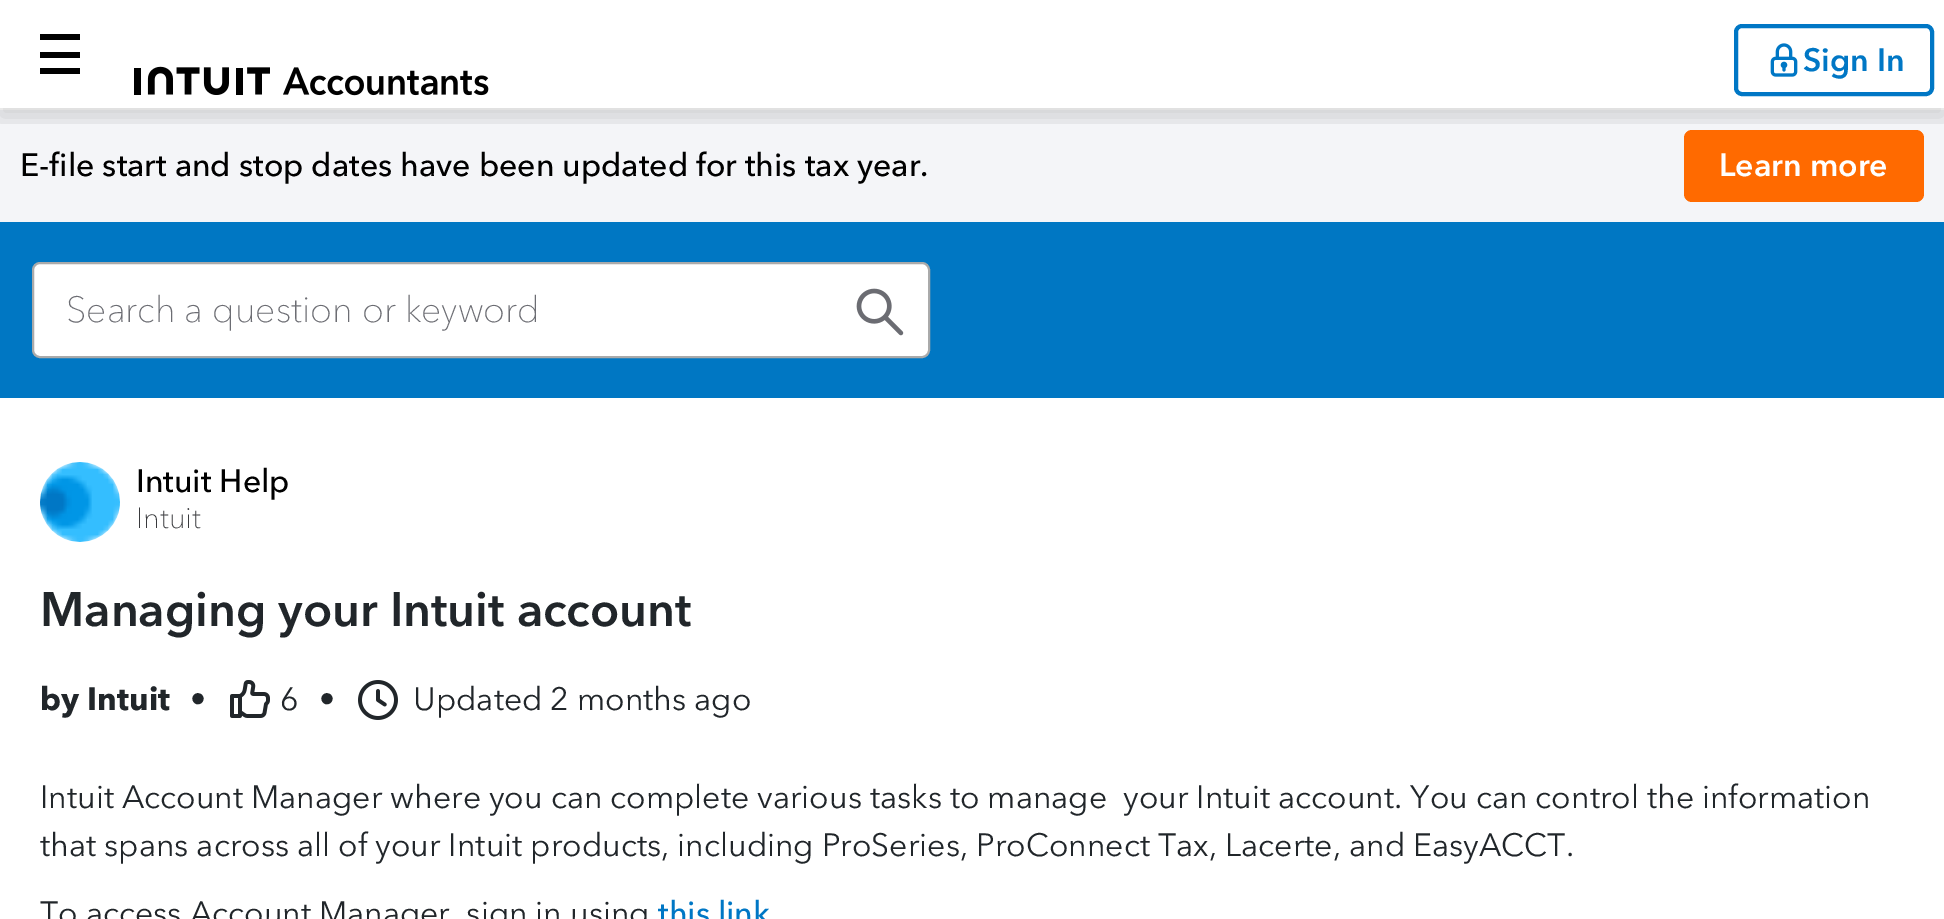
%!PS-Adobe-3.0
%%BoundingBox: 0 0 1944 919
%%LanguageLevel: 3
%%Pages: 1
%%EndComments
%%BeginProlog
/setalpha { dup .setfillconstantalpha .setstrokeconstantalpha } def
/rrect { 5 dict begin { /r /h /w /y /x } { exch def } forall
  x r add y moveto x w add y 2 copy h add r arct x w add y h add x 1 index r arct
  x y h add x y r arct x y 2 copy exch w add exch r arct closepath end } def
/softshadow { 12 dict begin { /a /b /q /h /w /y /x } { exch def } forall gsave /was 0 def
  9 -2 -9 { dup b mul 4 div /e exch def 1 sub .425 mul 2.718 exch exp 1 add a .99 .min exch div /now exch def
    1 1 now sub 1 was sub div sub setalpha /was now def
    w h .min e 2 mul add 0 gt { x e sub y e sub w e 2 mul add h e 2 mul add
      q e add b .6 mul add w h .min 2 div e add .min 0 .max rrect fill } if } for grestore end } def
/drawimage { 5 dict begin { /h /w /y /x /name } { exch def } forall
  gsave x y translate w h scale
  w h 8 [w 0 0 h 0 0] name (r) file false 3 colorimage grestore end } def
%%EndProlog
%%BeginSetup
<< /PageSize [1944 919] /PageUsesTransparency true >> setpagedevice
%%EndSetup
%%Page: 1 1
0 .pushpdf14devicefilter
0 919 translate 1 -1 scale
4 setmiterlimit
1 setgray
0 0 1944 919 rectfill
0.957 0.961 0.973 setrgbcolor
0 110 1944 112 rectfill
1 0.416 0 setrgbcolor
1684 130 240 72 8 rrect fill
gsave
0 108 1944 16 rectclip
0 setgray
0 8 1944 108 0 12 0.08 softshadow
0 8 1944 108 0 12 0.08 softshadow
grestore
0 setgray
40 52 40 6 rectfill
40 34 40 6 rectfill
40 68 40 6 rectfill
(images/1.raw) 134 66 355 30 drawimage
0 0.467 0.773 setrgbcolor
4 setlinewidth
1736 26 196 68 6 rrect stroke
(images/2.raw) 1770 43 28 34 drawimage
0 0.467 0.765 setrgbcolor
0 222 1944 176 rectfill
1 setgray
33 263 896 94 7 rrect gsave fill grestore
0.667 setgray
2 setlinewidth
stroke
(images/3.raw) 856 288 48 48 drawimage
(images/4.raw) 40 462 80 80 drawimage
(images/5.raw) 230 680 40 38 drawimage
(images/6.raw) 358 680 40 40 drawimage
/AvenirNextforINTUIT-SemiBold [32 0 0 -32 0 0] selectfont
0 0.467 0.773 setrgbcolor
1803 71 moveto (Sign In) show
/AvenirNextforINTUIT-Medium [32 0 0 -32 0 0] selectfont
0 setgray
20 176 moveto (E-file start and stop dates have been updated for this tax year.) show
/AvenirNextforINTUIT-SemiBold [32 0 0 -32 0 0] selectfont
1 setgray
1719 176 moveto (Learn more) show
/AvenirNextforINTUIT-Thin [36 0 0 -36 0 0] selectfont
0.424 0.427 0.451 setrgbcolor
66 322 moveto (Search a question or keyword) show
/AvenirNextforINTUIT-Medium [32 0 0 -32 0 0] selectfont
0 setgray
136 492 moveto (Intuit Help) show
/AvenirNextforINTUIT-Thin [29 0 0 -29 0 0] selectfont
0.224 0.227 0.239 setrgbcolor
136 528 moveto (Intuit) show
/AvenirNextforINTUIT-SemiBold [48 0 0 -48 0 0] selectfont
0.129 0.149 0.165 setrgbcolor
40 626 moveto (Managing your Intuit account) show
/AvenirNextforINTUIT-Bold [32 0 0 -32 0 0] selectfont
40 710 moveto (by Intuit) show
/AvenirNextforINTUIT-Regular [32 0 0 -32 0 0] selectfont
190 710 moveto (•) show
280 710 moveto (6) show
319 710 moveto (•) show
413 710 moveto (Updated 2 months ago) show
40 808 moveto (Intuit Account Manager where you can complete various tasks to manage  your Intuit account. You can control the information) show
40 856 moveto (that spans across all of your Intuit products, including ProSeries, ProConnect Tax, Lacerte, and EasyACCT.) show
40 924 moveto (To access Account Manager, sign in using) show
/AvenirNextforINTUIT-Medium [32 0 0 -32 0 0] selectfont
0 0.467 0.773 setrgbcolor
658 924 moveto (this link) show
.poppdf14devicefilter showpage
%%EOF
